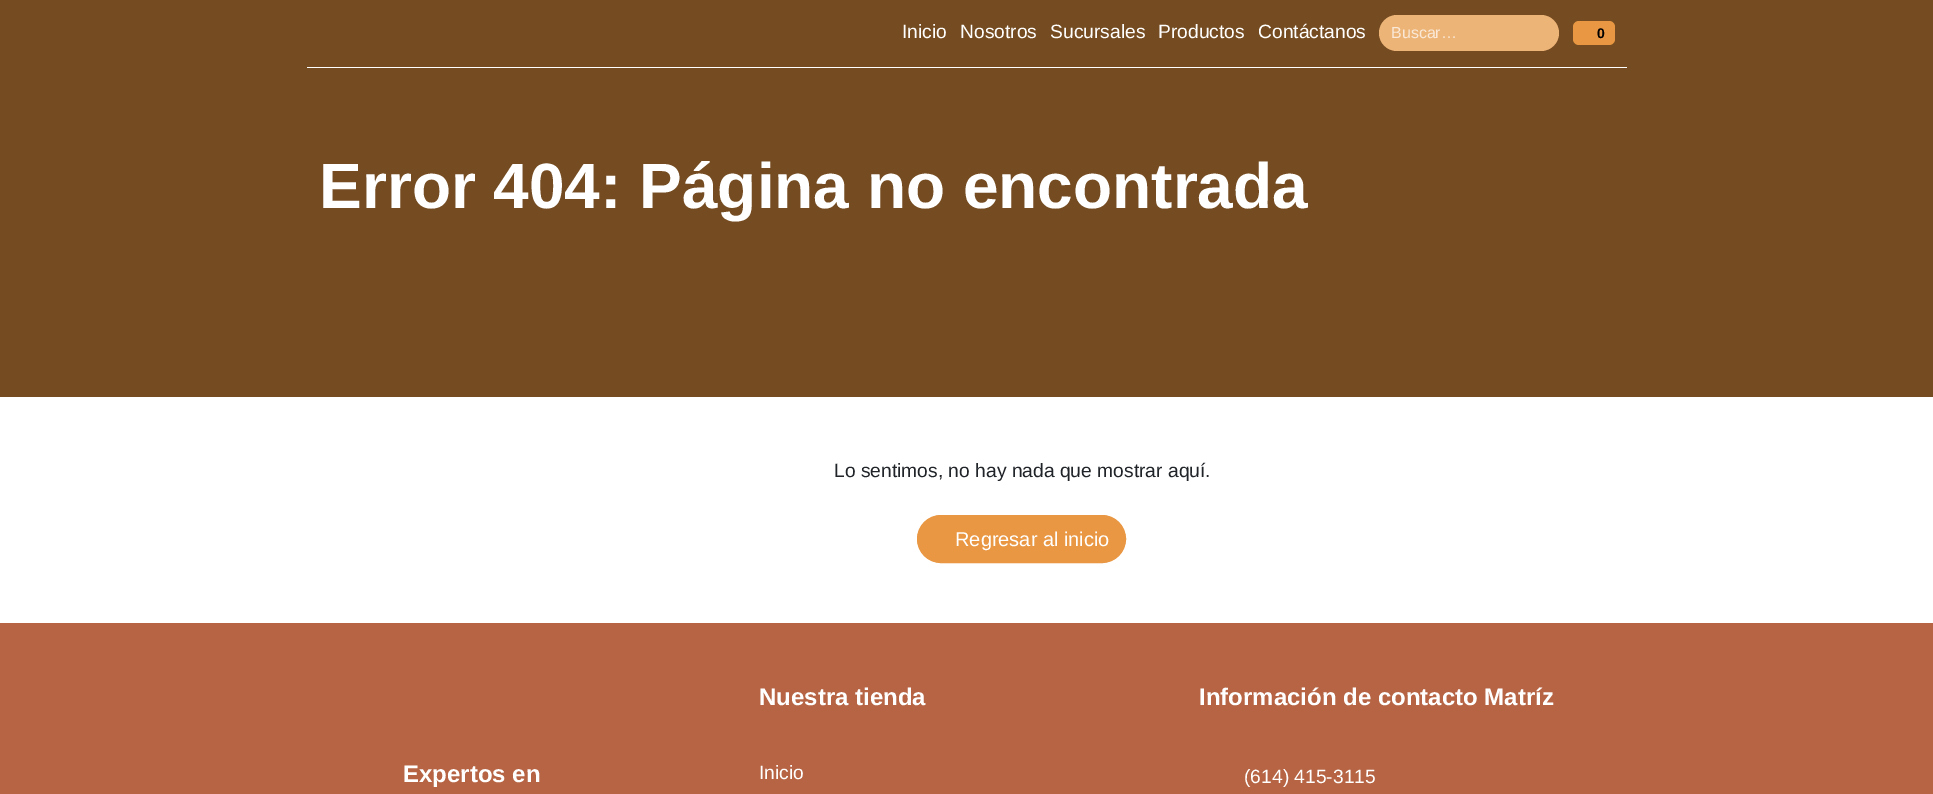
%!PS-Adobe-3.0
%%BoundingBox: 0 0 1933 794
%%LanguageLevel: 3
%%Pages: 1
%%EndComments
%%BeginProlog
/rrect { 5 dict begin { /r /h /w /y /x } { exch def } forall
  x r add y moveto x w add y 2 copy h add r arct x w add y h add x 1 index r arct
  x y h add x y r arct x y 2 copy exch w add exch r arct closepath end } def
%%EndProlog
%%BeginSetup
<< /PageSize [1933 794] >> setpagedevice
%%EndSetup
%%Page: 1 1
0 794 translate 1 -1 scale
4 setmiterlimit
1 setgray
0 0 1933 794 rectfill
0.459 0.298 0.129 setrgbcolor
0 0 1933 397 rectfill
1 setgray
307 67 1320 1 rectfill
0.929 0.706 0.471 setrgbcolor
1379 15 180 36 18 rrect fill
0.914 0.592 0.259 setrgbcolor
1573 21 42 24 6 rrect fill
917.5 515.5 208 47 23.5 rrect gsave fill grestore
stroke
0.714 0.392 0.267 setrgbcolor
0 623 1933 171 rectfill
/LiberationSans-Regular [19.25 0 0 -19.25 0 0] selectfont
1 setgray
902 38 moveto (Inicio) show
960 38 moveto (Nosotros) show
1050 38 moveto (Sucursales) show
1158 38 moveto (Productos) show
1258 38 moveto (Contáctanos) show
/LiberationSans-Regular [16 0 0 -16 0 0] selectfont
0.98 0.914 0.843 setrgbcolor
1391 38 moveto (Buscar…) show
/LiberationSans-Bold [14 0 0 -14 0 0] selectfont
0 setgray
1597 38 moveto (0) show
/LiberationSans-Bold [64 0 0 -64 0 0] selectfont
1 setgray
319 208 moveto (Error 404: Página no encontrada) show
/LiberationSans-Regular [19.25 0 0 -19.25 0 0] selectfont
0.129 0.145 0.161 setrgbcolor
834 477 moveto (Lo sentimos, no hay nada que mostrar aquí.) show
/LiberationSans-Regular [20 0 0 -20 0 0] selectfont
1 setgray
955 546 moveto (Regresar al inicio) show
/LiberationSans-Bold [24 0 0 -24 0 0] selectfont
403 782 moveto (Expertos en) show
759 705 moveto (Nuestra tienda) show
/LiberationSans-Regular [19.25 0 0 -19.25 0 0] selectfont
759 779 moveto (Inicio) show
/LiberationSans-Bold [24 0 0 -24 0 0] selectfont
1199 705 moveto (Información de contacto Matríz) show
/LiberationSans-Regular [19.25 0 0 -19.25 0 0] selectfont
1244 783 moveto (\(614\) 415-3115) show
showpage
%%EOF
